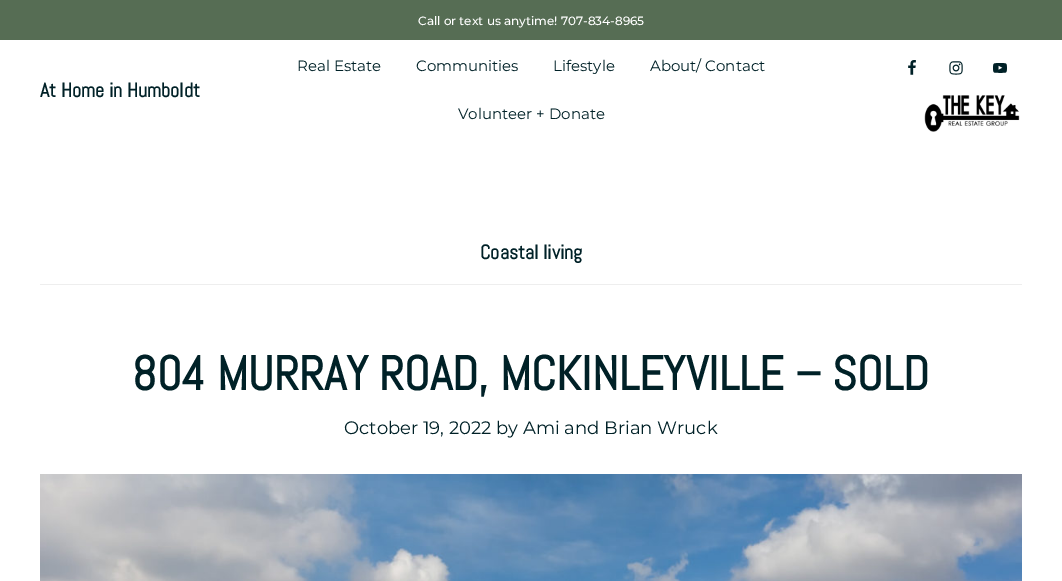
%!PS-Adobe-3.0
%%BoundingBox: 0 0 1062 581
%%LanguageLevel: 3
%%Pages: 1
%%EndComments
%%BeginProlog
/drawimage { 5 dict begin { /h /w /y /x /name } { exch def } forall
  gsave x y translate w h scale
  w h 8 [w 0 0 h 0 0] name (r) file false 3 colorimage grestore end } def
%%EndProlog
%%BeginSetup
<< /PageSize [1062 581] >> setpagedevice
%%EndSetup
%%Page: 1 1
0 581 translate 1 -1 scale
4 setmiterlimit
1 setgray
0 0 1062 581 rectfill
0.337 0.427 0.329 setrgbcolor
0 0 1062 40 rectfill
(images/1.raw) 908 60 8 15 drawimage
(images/2.raw) 949 61 14 14 drawimage
(images/3.raw) 993 63 14 10 drawimage
(images/4.raw) 924 95 96 37 drawimage
0.933 setgray
40 284 982 1 rectfill
(images/5.raw) 40 474 982 107 drawimage
/Montserrat-Medium [12 0 0 -12 0 0] selectfont
1 setgray
418 25 moveto (Call or text us anytime! 707-834-8965) show
/Abel-Bold [20 0 0 -20 0 0] selectfont
0 0.129 0.153 setrgbcolor
40 97 moveto (At Home in Humboldt) show
/Montserrat-Regular [15 0 0 -15 0 0] selectfont
297 71 moveto (Real Estate) show
416 71 moveto (Communities) show
553 71 moveto (Lifestyle) show
650 71 moveto (About/ Contact) show
458 119 moveto (Volunteer + Donate) show
/Abel-Bold [20 0 0 -20 0 0] selectfont
480 259 moveto (Coastal living) show
/Abel-Bold [48 0 0 -48 0 0] selectfont
132 390 moveto (804 MURRAY ROAD, MCKINLEYVILLE – SOLD) show
/Montserrat-Regular [18 0 0 -18 0 0] selectfont
344 434 moveto (October 19, 2022 by Ami and Brian Wruck) show
showpage
%%EOF
